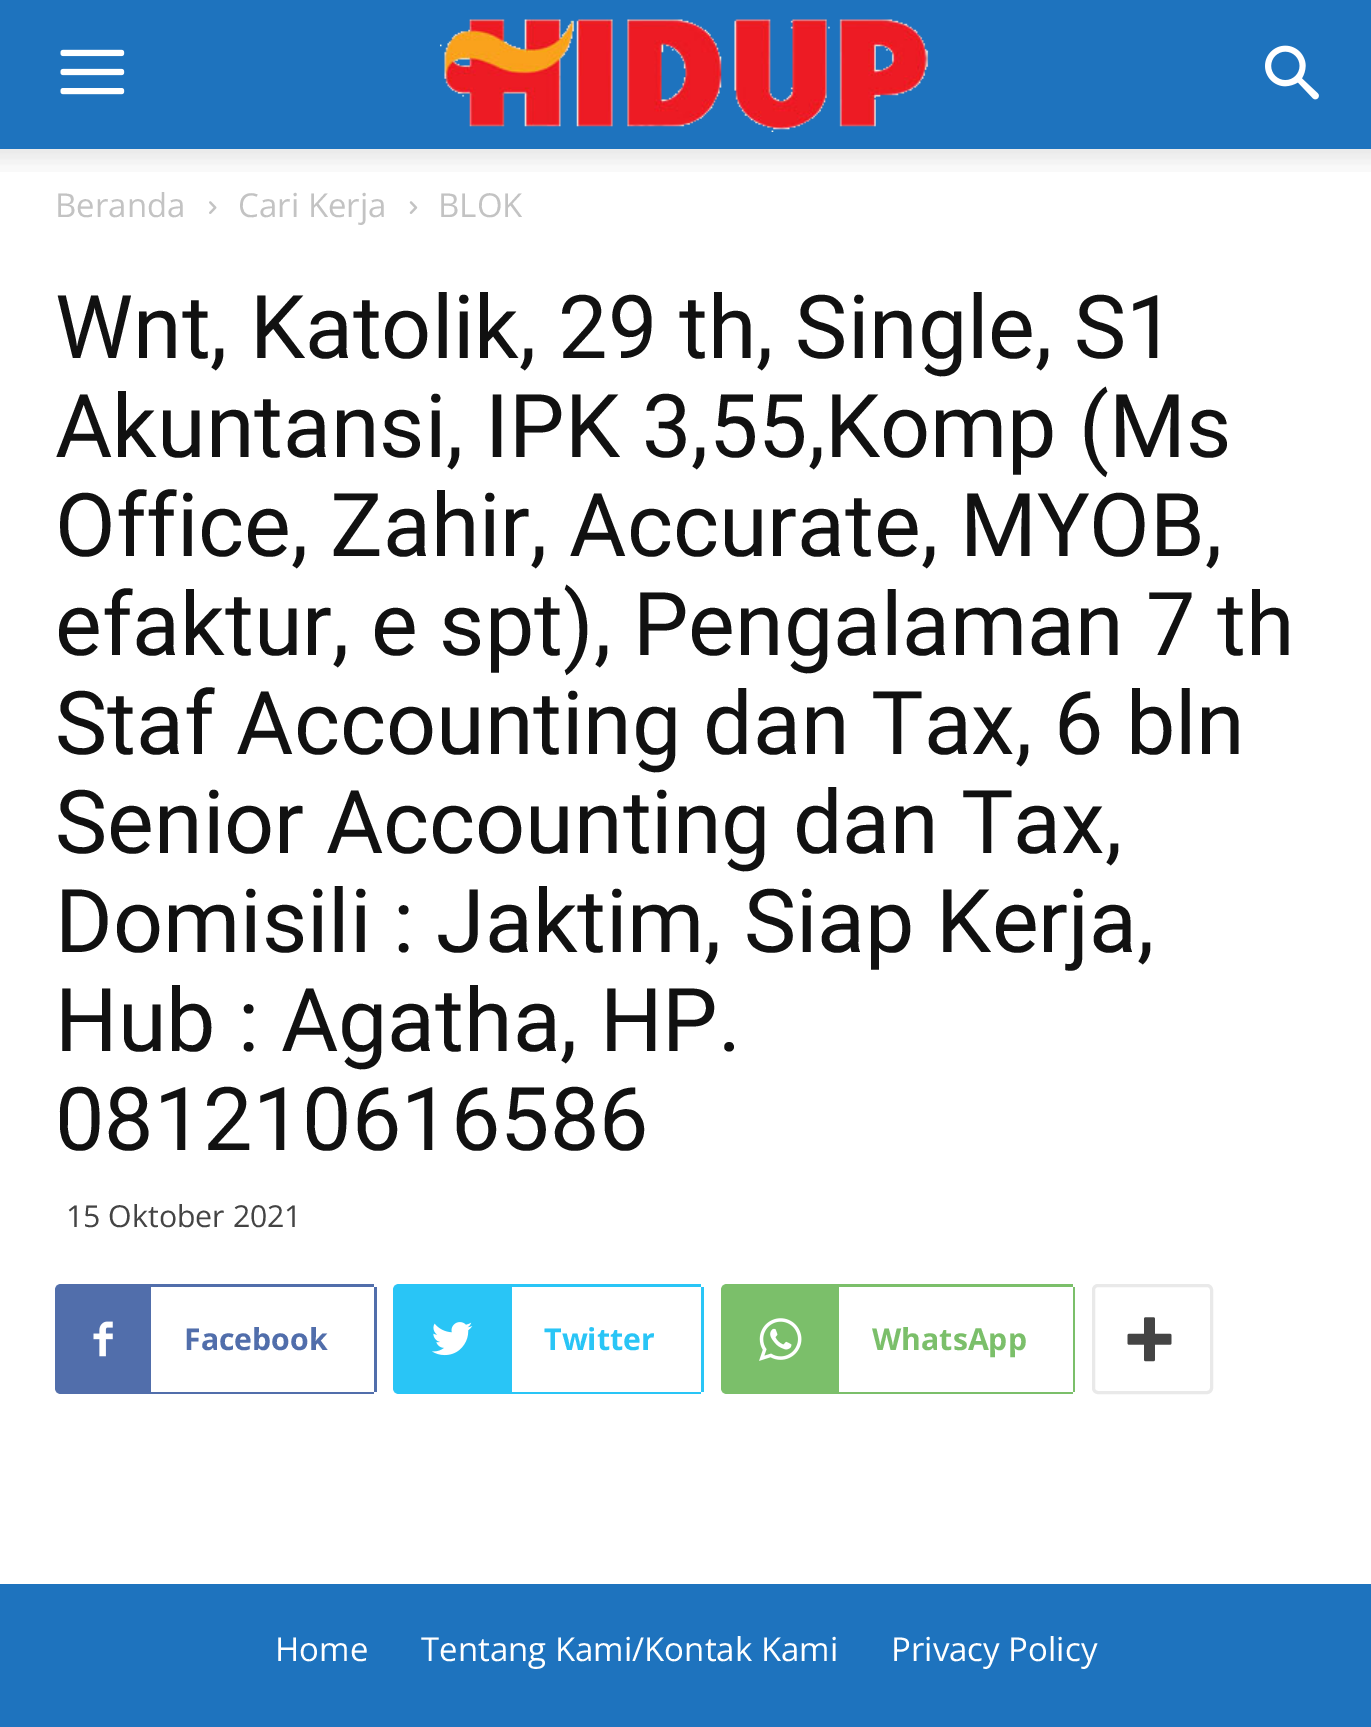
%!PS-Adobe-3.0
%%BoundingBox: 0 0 1371 1727
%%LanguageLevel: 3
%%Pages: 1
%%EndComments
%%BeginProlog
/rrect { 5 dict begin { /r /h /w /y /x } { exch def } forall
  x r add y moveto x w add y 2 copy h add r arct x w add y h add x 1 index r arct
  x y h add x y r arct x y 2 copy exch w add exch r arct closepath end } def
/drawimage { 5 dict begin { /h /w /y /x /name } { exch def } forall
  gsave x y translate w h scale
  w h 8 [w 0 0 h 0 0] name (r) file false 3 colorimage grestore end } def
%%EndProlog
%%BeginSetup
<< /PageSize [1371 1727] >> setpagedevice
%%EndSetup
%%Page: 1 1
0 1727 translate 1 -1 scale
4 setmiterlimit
1 setgray
0 0 1371 1727 rectfill
0.118 0.451 0.745 setrgbcolor
0 0 1371 149 rectfill
(images/1.raw) 60 49 65 46 drawimage
(images/2.raw) 440 19 489 113 drawimage
(images/3.raw) 1265 45 54 55 drawimage
(images/4.raw) 0 149 1371 23 drawimage
(images/5.raw) 209 201 8 13 drawimage
(images/6.raw) 409 201 9 13 drawimage
0.318 0.431 0.671 setrgbcolor
newpath 61 1284 moveto 151 1284 lineto 151 1394 lineto 61 1394 lineto 57.5 1394 55 1391.5 55 1388 curveto 55 1290 lineto 55 1286.5 57.5 1284 61 1284 curveto closepath fill
(images/7.raw) 93 1321 20 36 drawimage
151 1284 223 3 rectfill
374 1287 3 105 rectfill
151 1392 223 2 rectfill
0.161 0.773 0.965 setrgbcolor
newpath 399 1284 moveto 512 1284 lineto 512 1394 lineto 399 1394 lineto 395.5 1394 393 1391.5 393 1388 curveto 393 1290 lineto 393 1286.5 395.5 1284 399 1284 curveto closepath fill
(images/8.raw) 432 1322 41 34 drawimage
512 1284 189 3 rectfill
701 1287 3 105 rectfill
512 1392 189 2 rectfill
0.482 0.749 0.416 setrgbcolor
newpath 727 1284 moveto 839 1284 lineto 839 1394 lineto 727 1394 lineto 723.5 1394 721 1391.5 721 1388 curveto 721 1290 lineto 721 1286.5 723.5 1284 727 1284 curveto closepath fill
(images/9.raw) 759 1318 43 43 drawimage
839 1284 234 3 rectfill
1073 1287 2 105 rectfill
839 1392 234 2 rectfill
0.914 setgray
3 setlinewidth
1093.5 1285.5 118 107 4.5 rrect stroke
(images/10.raw) 1127 1317 45 45 drawimage
0.118 0.451 0.745 setrgbcolor
0 1584 1371 143 rectfill
/OpenSans-Regular [33 0 0 -33 0 0] selectfont
0.765 setgray
55 217 moveto (Beranda) show
238 217 moveto (Cari Kerja) show
438 217 moveto (BLOK) show
/Roboto-Regular [88 0 0 -88 0 0] selectfont
0.067 setgray
55 358 moveto (Wnt, Katolik, 29 th, Single, S1) show
55 457 moveto (Akuntansi, IPK 3,55,Komp \(Ms) show
55 556 moveto (Office, Zahir, Accurate, MYOB,) show
55 655 moveto (efaktur, e spt\), Pengalaman 7 th) show
55 754 moveto (Staf Accounting dan Tax, 6 bln) show
55 853 moveto (Senior Accounting dan Tax,) show
55 952 moveto (Domisili : Jaktim, Siap Kerja,) show
55 1051 moveto (Hub : Agatha, HP.) show
55 1150 moveto (081210616586) show
/OpenSans-Regular [30.25 0 0 -30.25 0 0] selectfont
0.267 setgray
66 1227 moveto (15 Oktober 2021) show
/OpenSans-Bold [30.25 0 0 -30.25 0 0] selectfont
0.318 0.431 0.671 setrgbcolor
184 1350 moveto (Facebook) show
0.161 0.773 0.965 setrgbcolor
544 1350 moveto (Twitter) show
0.482 0.749 0.416 setrgbcolor
872 1350 moveto (WhatsApp) show
/OpenSans-Regular [33 0 0 -33 0 0] selectfont
1 setgray
275 1661 moveto (Home) show
421 1661 moveto (Tentang Kami/Kontak Kami) show
891 1661 moveto (Privacy Policy) show
showpage
%%EOF
